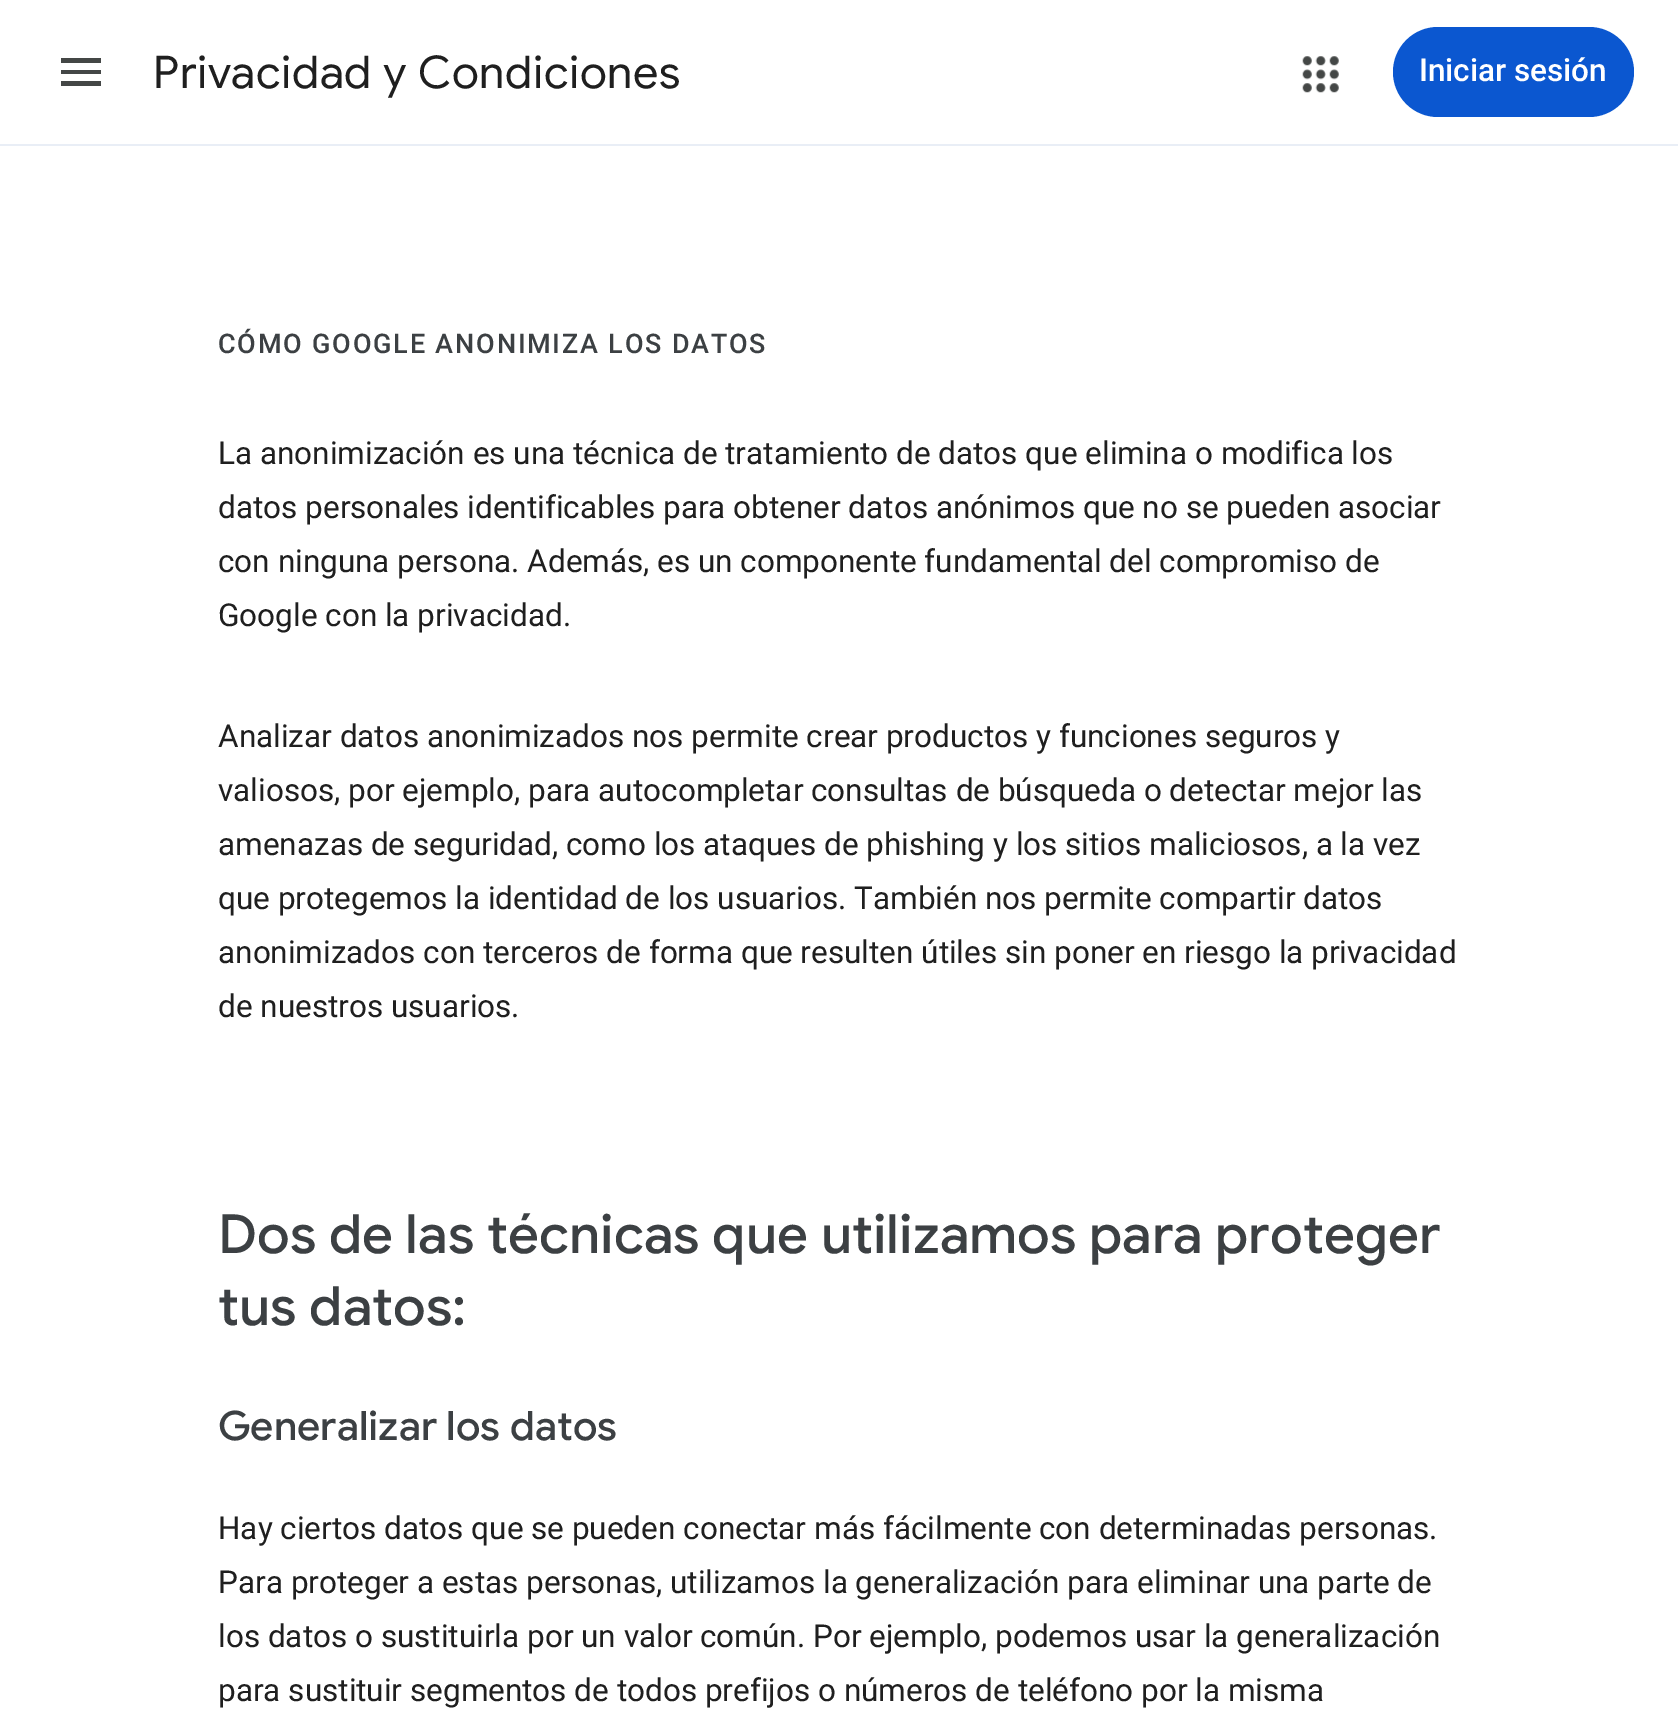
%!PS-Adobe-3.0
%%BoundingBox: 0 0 1678 1709
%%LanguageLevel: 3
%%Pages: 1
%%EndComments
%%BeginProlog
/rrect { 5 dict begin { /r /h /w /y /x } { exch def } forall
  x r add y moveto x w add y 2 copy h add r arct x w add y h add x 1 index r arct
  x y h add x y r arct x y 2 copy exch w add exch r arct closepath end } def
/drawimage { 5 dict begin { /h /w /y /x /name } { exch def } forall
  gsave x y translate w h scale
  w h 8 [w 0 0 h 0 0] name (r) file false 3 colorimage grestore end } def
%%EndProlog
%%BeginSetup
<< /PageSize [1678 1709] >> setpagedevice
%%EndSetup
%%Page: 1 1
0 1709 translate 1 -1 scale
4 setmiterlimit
1 setgray
0 0 1678 1709 rectfill
0.267 0.278 0.275 setrgbcolor
newpath 61 86 moveto 101 86 lineto 101 81 lineto 61 81 lineto closepath 61 74 moveto 101 74 lineto 101 70 lineto 61 70 lineto closepath 61 58 moveto 61 63 lineto 101 63 lineto 101 58 lineto closepath fill
(images/1.raw) 1302 56 37 37 drawimage
0.043 0.341 0.816 setrgbcolor
1393 27 241 90 45 rrect fill
0.914 0.933 0.965 setrgbcolor
0 144 1678 2 rectfill
/GoogleSans-Regular [45 0 0 -45 0 0] selectfont
0.122 setgray
153 88 moveto 0.6 0 (Privacidad y Condiciones) ashow
/Roboto-Medium [31.5 0 0 -31.5 0 0] selectfont
1 setgray
1419 81 moveto (Iniciar sesión) show
/Roboto-Medium [27 0 0 -27 0 0] selectfont
0.235 0.251 0.263 setrgbcolor
218 353 moveto 1.8 0 (CÓMO GOOGLE ANONIMIZA LOS DATOS) ashow
/Roboto-Regular [31.5 0 0 -31.5 0 0] selectfont
0.122 setgray
218 464 moveto (La anonimización es una técnica de tratamiento de datos que elimina o modifica los) show
218 518 moveto (datos personales identificables para obtener datos anónimos que no se pueden asociar) show
218 572 moveto (con ninguna persona. Además, es un componente fundamental del compromiso de) show
218 626 moveto (Google con la privacidad.) show
218 747 moveto (Analizar datos anonimizados nos permite crear productos y funciones seguros y) show
218 801 moveto (valiosos, por ejemplo, para autocompletar consultas de búsqueda o detectar mejor las) show
218 855 moveto (amenazas de seguridad, como los ataques de phishing y los sitios maliciosos, a la vez) show
218 909 moveto (que protegemos la identidad de los usuarios. También nos permite compartir datos) show
218 963 moveto (anonimizados con terceros de forma que resulten útiles sin poner en riesgo la privacidad) show
218 1017 moveto (de nuestros usuarios.) show
/GoogleSans-Medium [54 0 0 -54 0 0] selectfont
0.235 0.251 0.263 setrgbcolor
218 1253 moveto (Dos de las técnicas que utilizamos para proteger) show
218 1325 moveto (tus datos:) show
/GoogleSans-Medium [40.5 0 0 -40.5 0 0] selectfont
218 1440 moveto (Generalizar los datos) show
/Roboto-Regular [31.5 0 0 -31.5 0 0] selectfont
0.122 setgray
218 1539 moveto (Hay ciertos datos que se pueden conectar más fácilmente con determinadas personas.) show
218 1593 moveto (Para proteger a estas personas, utilizamos la generalización para eliminar una parte de) show
218 1647 moveto (los datos o sustituirla por un valor común. Por ejemplo, podemos usar la generalización) show
218 1701 moveto (para sustituir segmentos de todos prefijos o números de teléfono por la misma) show
showpage
%%EOF
